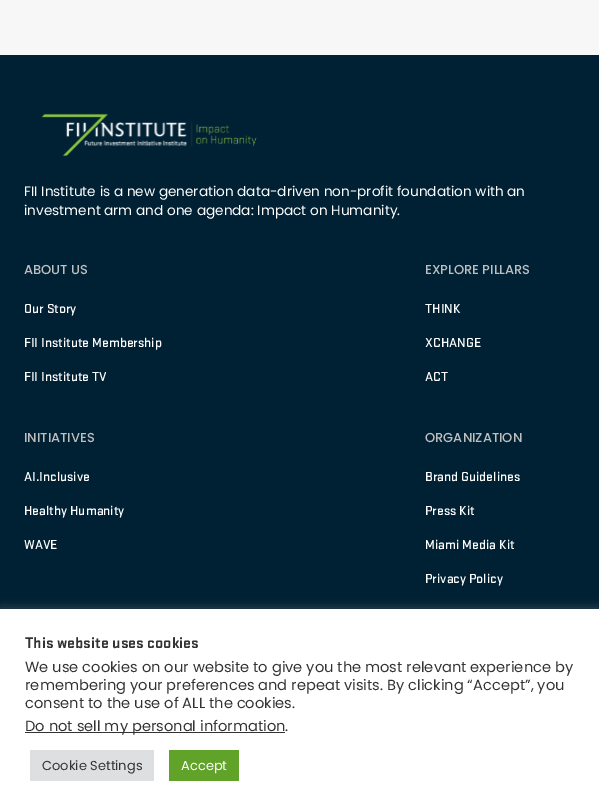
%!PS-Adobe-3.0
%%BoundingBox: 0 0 599 811
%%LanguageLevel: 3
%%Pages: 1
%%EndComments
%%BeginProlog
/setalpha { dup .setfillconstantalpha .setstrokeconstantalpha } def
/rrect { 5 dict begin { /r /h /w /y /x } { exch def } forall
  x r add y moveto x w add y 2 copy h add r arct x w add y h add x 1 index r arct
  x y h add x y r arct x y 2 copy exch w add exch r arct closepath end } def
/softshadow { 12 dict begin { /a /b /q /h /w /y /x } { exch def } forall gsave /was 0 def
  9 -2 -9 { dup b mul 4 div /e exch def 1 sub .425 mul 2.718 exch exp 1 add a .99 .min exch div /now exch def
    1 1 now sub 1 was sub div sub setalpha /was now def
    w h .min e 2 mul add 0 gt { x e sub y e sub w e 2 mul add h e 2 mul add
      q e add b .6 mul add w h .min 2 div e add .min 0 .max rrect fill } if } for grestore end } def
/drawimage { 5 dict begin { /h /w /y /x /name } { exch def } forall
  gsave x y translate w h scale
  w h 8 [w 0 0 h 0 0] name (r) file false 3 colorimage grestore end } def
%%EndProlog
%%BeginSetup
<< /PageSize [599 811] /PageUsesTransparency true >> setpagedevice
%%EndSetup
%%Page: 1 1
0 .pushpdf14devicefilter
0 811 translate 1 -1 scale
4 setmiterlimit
0.969 setgray
0 0 599 811 rectfill
0 0.125 0.2 setrgbcolor
0 55 599 554 rectfill
(images/1.raw) 41 113 216 44 drawimage
0.675 0.671 0.671 setrgbcolor
0 608 599 202 0 5 0.3 softshadow
1 setgray
0 609 599 202 rectfill
0.2 setgray
25 732 260 1 rectfill
0.871 0.875 0.878 setrgbcolor
30 750 124 31 rectfill
0.38 0.635 0.161 setrgbcolor
169 750 70 31 rectfill
/Poppins-Regular [13.65 0 0 -13.65 0 0] selectfont
1 setgray
24 196 moveto (FII Institute is a new generation data-driven non-profit foundation with an) show
24 215 moveto (investment arm and one agenda: Impact on Humanity.) show
/Poppins-Medium [13 0 0 -13 0 0] selectfont
0.749 setgray
24 274 moveto (ABOUT US) show
/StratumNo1-Medium [13.65 0 0 -13.65 0 0] selectfont
1 setgray
24 313 moveto (Our Story) show
24 347 moveto (FII Institute Membership) show
24 381 moveto (FII Institute TV) show
/Poppins-Medium [13 0 0 -13 0 0] selectfont
0.749 setgray
425 274 moveto (EXPLORE PILLARS) show
/StratumNo1-Medium [13.65 0 0 -13.65 0 0] selectfont
1 setgray
425 313 moveto (THINK) show
425 347 moveto (XCHANGE) show
425 381 moveto (ACT) show
/Poppins-Medium [13 0 0 -13 0 0] selectfont
0.749 setgray
24 442 moveto (INITIATIVES) show
/StratumNo1-Medium [13.65 0 0 -13.65 0 0] selectfont
1 setgray
24 481 moveto (AI.Inclusive) show
24 515 moveto (Healthy Humanity) show
24 549 moveto (WAVE) show
/Poppins-Medium [13 0 0 -13 0 0] selectfont
0.749 setgray
425 442 moveto (ORGANIZATION) show
/StratumNo1-Medium [13.65 0 0 -13.65 0 0] selectfont
1 setgray
425 481 moveto (Brand Guidelines) show
425 515 moveto (Press Kit) show
425 549 moveto (Miami Media Kit) show
425 583 moveto (Privacy Policy) show
/StratumNo1-Bold [16 0 0 -16 0 0] selectfont
0.2 setgray
25 648 moveto (This website uses cookies) show
/Poppins-Regular [14.65 0 0 -14.65 0 0] selectfont
25 672 moveto (We use cookies on our website to give you the most relevant experience by) show
25 690 moveto (remembering your preferences and repeat visits. By clicking “Accept”, you) show
25 708 moveto (consent to the use of ALL the cookies.) show
25 731 moveto (Do not sell my personal information.) show
/Poppins-Regular [13 0 0 -13 0 0] selectfont
42 770 moveto (Cookie Settings) show
1 setgray
181 770 moveto (Accept) show
.poppdf14devicefilter showpage
%%EOF
